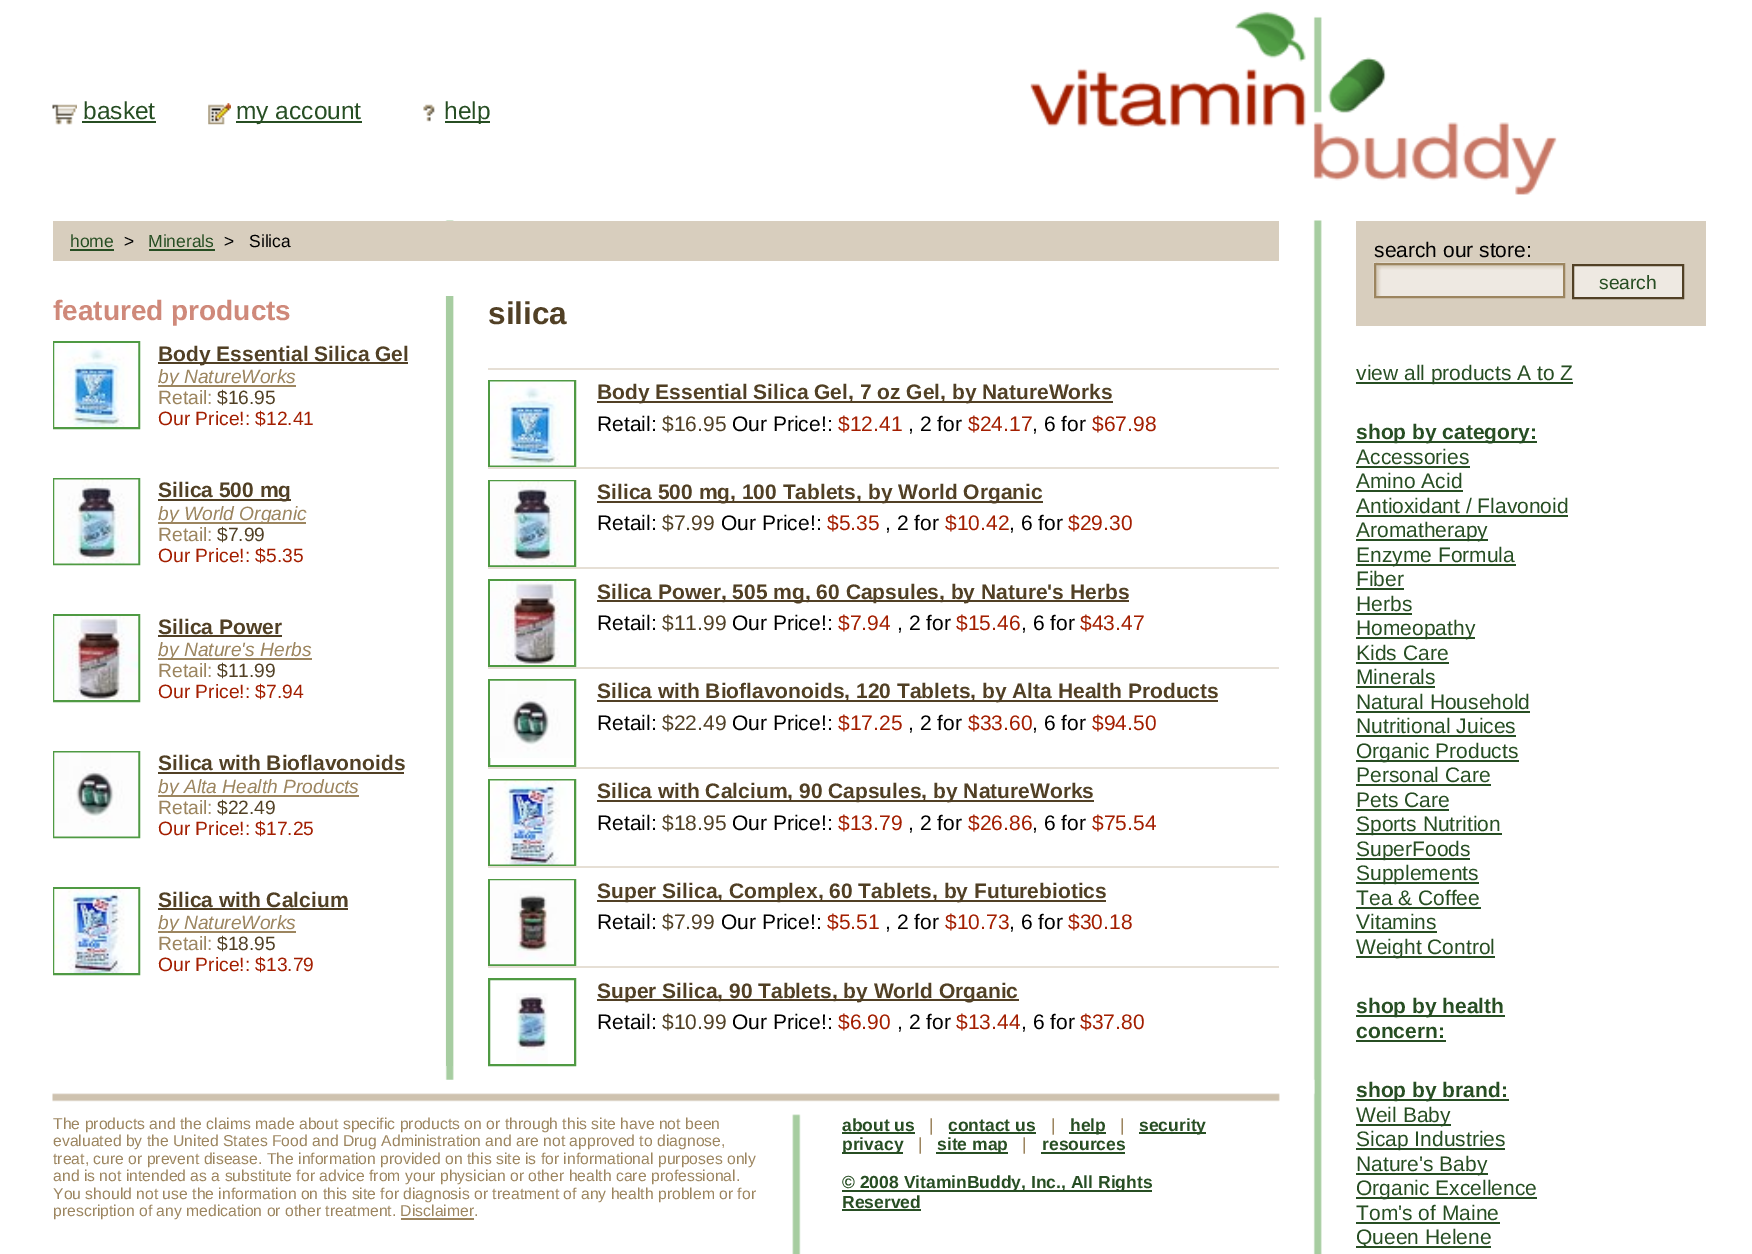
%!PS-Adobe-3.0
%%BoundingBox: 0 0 1752 1254
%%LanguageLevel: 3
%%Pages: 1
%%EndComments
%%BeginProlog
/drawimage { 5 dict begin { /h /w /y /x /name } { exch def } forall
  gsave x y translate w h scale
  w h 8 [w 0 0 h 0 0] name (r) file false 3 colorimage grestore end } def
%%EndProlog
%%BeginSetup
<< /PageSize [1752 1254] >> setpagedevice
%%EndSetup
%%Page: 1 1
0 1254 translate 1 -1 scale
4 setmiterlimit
1 setgray
0 0 1752 1254 rectfill
(images/1.raw) 52 104 25 21 drawimage
0.153 0.306 0.137 setrgbcolor
82 121 74 2 rectfill
(images/2.raw) 208 103 23 22 drawimage
236 121 126 2 rectfill
(images/3.raw) 423 104 12 18 drawimage
445 121 45 2 rectfill
(images/4.raw) 1030 11 527 184 drawimage
(images/5.raw) 445 220 877 1034 drawimage
0.847 0.808 0.745 setrgbcolor
53 221 1226 40 rectfill
1 setgray
445 261 9 35 rectfill
0.153 0.306 0.137 setrgbcolor
70 249 44 2 rectfill
149 249 66 2 rectfill
0.31 0.604 0.263 setrgbcolor
2 setlinewidth
54 342 85 86 rectstroke
(images/6.raw) 54 343 85 84 drawimage
0.318 0.251 0.145 setrgbcolor
158 362 250 2 rectfill
0.612 0.522 0.373 setrgbcolor
158 385 138 2 rectfill
0.31 0.604 0.263 setrgbcolor
54 479 85 85 rectstroke
(images/7.raw) 54 479 85 85 drawimage
0.318 0.251 0.145 setrgbcolor
158 499 133 2 rectfill
0.612 0.522 0.373 setrgbcolor
158 522 148 2 rectfill
0.31 0.604 0.263 setrgbcolor
54 615 85 86 rectstroke
(images/8.raw) 54 616 85 84 drawimage
0.318 0.251 0.145 setrgbcolor
158 635 124 2 rectfill
0.612 0.522 0.373 setrgbcolor
158 658 154 2 rectfill
0.31 0.604 0.263 setrgbcolor
54 752 85 85 rectstroke
(images/9.raw) 54 752 85 85 drawimage
0.318 0.251 0.145 setrgbcolor
158 772 246 2 rectfill
0.612 0.522 0.373 setrgbcolor
158 795 201 2 rectfill
0.31 0.604 0.263 setrgbcolor
54 888 85 86 rectstroke
(images/10.raw) 54 889 85 84 drawimage
0.318 0.251 0.145 setrgbcolor
158 908 190 2 rectfill
0.612 0.522 0.373 setrgbcolor
158 931 138 2 rectfill
0.655 0.804 0.631 setrgbcolor
446 296 7 770 rectfill
0.902 0.875 0.835 setrgbcolor
488 368 791 2 rectfill
0.31 0.604 0.263 setrgbcolor
489 381 86 85 rectstroke
(images/11.raw) 490 381 84 85 drawimage
0.318 0.251 0.145 setrgbcolor
597 401 516 2 rectfill
0.902 0.875 0.835 setrgbcolor
488 467 791 2 rectfill
0.31 0.604 0.263 setrgbcolor
489 481 86 85 rectstroke
(images/12.raw) 490 481 84 85 drawimage
0.318 0.251 0.145 setrgbcolor
597 501 446 2 rectfill
0.902 0.875 0.835 setrgbcolor
488 567 791 2 rectfill
0.31 0.604 0.263 setrgbcolor
489 580 86 86 rectstroke
(images/13.raw) 490 581 84 84 drawimage
0.318 0.251 0.145 setrgbcolor
597 600 532 2 rectfill
0.902 0.875 0.835 setrgbcolor
488 667 791 2 rectfill
0.31 0.604 0.263 setrgbcolor
489 680 86 86 rectstroke
(images/14.raw) 490 680 84 78 drawimage
0.318 0.251 0.145 setrgbcolor
597 700 621 2 rectfill
0.902 0.875 0.835 setrgbcolor
488 767 791 2 rectfill
0.31 0.604 0.263 setrgbcolor
489 780 86 85 rectstroke
(images/15.raw) 490 780 84 85 drawimage
0.318 0.251 0.145 setrgbcolor
597 800 497 2 rectfill
0.902 0.875 0.835 setrgbcolor
488 866 791 2 rectfill
0.31 0.604 0.263 setrgbcolor
489 880 86 85 rectstroke
(images/16.raw) 490 880 84 85 drawimage
0.318 0.251 0.145 setrgbcolor
597 900 509 2 rectfill
0.902 0.875 0.835 setrgbcolor
488 966 791 2 rectfill
0.31 0.604 0.263 setrgbcolor
489 979 86 86 rectstroke
(images/17.raw) 516 993 32 71 drawimage
0.318 0.251 0.145 setrgbcolor
597 999 422 2 rectfill
(images/18.raw) 52 1079 1263 175 drawimage
0.612 0.522 0.373 setrgbcolor
401 1218 73 2 rectfill
0.153 0.306 0.137 setrgbcolor
842 1132 73 2 rectfill
949 1132 87 2 rectfill
1069 1132 37 2 rectfill
1139 1132 67 2 rectfill
842 1152 61 2 rectfill
936 1152 72 2 rectfill
1041 1152 84 2 rectfill
842 1190 310 2 rectfill
842 1209 79 2 rectfill
0.847 0.808 0.745 setrgbcolor
1356 221 350 105 rectfill
(images/19.raw) 1373 262 192 36 drawimage
0.612 0.522 0.373 setrgbcolor
1375 264 189 33 rectstroke
0.933 0.914 0.886 setrgbcolor
newpath 1573 265 moveto 1683 265 lineto 1683 298 lineto 1573 298 lineto closepath gsave fill grestore
0.318 0.251 0.145 setrgbcolor
stroke
0.153 0.306 0.137 setrgbcolor
1356 382 217 2 rectfill
1356 441 181 2 rectfill
1356 466 114 2 rectfill
1356 490 107 2 rectfill
1356 515 212 2 rectfill
1356 539 132 2 rectfill
1356 564 160 2 rectfill
1356 588 48 2 rectfill
1356 613 56 2 rectfill
1356 637 119 2 rectfill
1356 662 93 2 rectfill
1356 686 79 2 rectfill
1356 711 174 2 rectfill
1356 735 160 2 rectfill
1356 760 163 2 rectfill
1356 784 135 2 rectfill
1356 809 93 2 rectfill
1356 833 146 2 rectfill
1356 858 114 2 rectfill
1356 882 123 2 rectfill
1356 907 125 2 rectfill
1356 931 81 2 rectfill
1356 956 139 2 rectfill
1356 1015 149 2 rectfill
1356 1040 90 2 rectfill
1356 1099 153 2 rectfill
1356 1124 95 2 rectfill
1356 1148 149 2 rectfill
1356 1173 132 2 rectfill
1356 1197 181 2 rectfill
1356 1222 144 2 rectfill
1356 1246 135 2 rectfill
/LiberationSans-Regular [24.5 0 0 -24.5 0 0] selectfont
83 119 moveto (basket) show
236 119 moveto (my account) show
444 119 moveto (help) show
/LiberationSans-Regular [17.5 0 0 -17.5 0 0] selectfont
70 247 moveto (home) show
0 setgray
124 247 moveto (>) show
0.153 0.306 0.137 setrgbcolor
148 247 moveto (Minerals) show
0 setgray
224 247 moveto (>) show
249 247 moveto (Silica) show
/LiberationSans-Bold [28 0 0 -28 0 0] selectfont
0.812 0.537 0.478 setrgbcolor
53 320 moveto (featured products) show
/LiberationSans-Bold [21 0 0 -21 0 0] selectfont
0.318 0.251 0.145 setrgbcolor
158 361 moveto (Body Essential Silica Gel) show
/LiberationSans-Italic [19.25 0 0 -19.25 0 0] selectfont
0.612 0.522 0.373 setrgbcolor
158 383 moveto (by NatureWorks) show
/LiberationSans-Regular [19.25 0 0 -19.25 0 0] selectfont
158 404 moveto (Retail:) show
0.318 0.251 0.145 setrgbcolor
217 404 moveto ($16.95) show
0.639 0.118 0 setrgbcolor
158 425 moveto (Our Price!: $12.41) show
/LiberationSans-Bold [21 0 0 -21 0 0] selectfont
0.318 0.251 0.145 setrgbcolor
158 497 moveto (Silica 500 mg) show
/LiberationSans-Italic [19.25 0 0 -19.25 0 0] selectfont
0.612 0.522 0.373 setrgbcolor
158 520 moveto (by World Organic) show
/LiberationSans-Regular [19.25 0 0 -19.25 0 0] selectfont
158 541 moveto (Retail:) show
0.318 0.251 0.145 setrgbcolor
217 541 moveto ($7.99) show
0.639 0.118 0 setrgbcolor
158 562 moveto (Our Price!: $5.35) show
/LiberationSans-Bold [21 0 0 -21 0 0] selectfont
0.318 0.251 0.145 setrgbcolor
158 634 moveto (Silica Power) show
/LiberationSans-Italic [19.25 0 0 -19.25 0 0] selectfont
0.612 0.522 0.373 setrgbcolor
158 656 moveto (by Nature's Herbs) show
/LiberationSans-Regular [19.25 0 0 -19.25 0 0] selectfont
158 677 moveto (Retail:) show
0.318 0.251 0.145 setrgbcolor
217 677 moveto ($11.99) show
0.639 0.118 0 setrgbcolor
158 698 moveto (Our Price!: $7.94) show
/LiberationSans-Bold [21 0 0 -21 0 0] selectfont
0.318 0.251 0.145 setrgbcolor
158 770 moveto (Silica with Bioflavonoids) show
/LiberationSans-Italic [19.25 0 0 -19.25 0 0] selectfont
0.612 0.522 0.373 setrgbcolor
158 793 moveto (by Alta Health Products) show
/LiberationSans-Regular [19.25 0 0 -19.25 0 0] selectfont
158 814 moveto (Retail:) show
0.318 0.251 0.145 setrgbcolor
217 814 moveto ($22.49) show
0.639 0.118 0 setrgbcolor
158 835 moveto (Our Price!: $17.25) show
/LiberationSans-Bold [21 0 0 -21 0 0] selectfont
0.318 0.251 0.145 setrgbcolor
158 907 moveto (Silica with Calcium) show
/LiberationSans-Italic [19.25 0 0 -19.25 0 0] selectfont
0.612 0.522 0.373 setrgbcolor
158 929 moveto (by NatureWorks) show
/LiberationSans-Regular [19.25 0 0 -19.25 0 0] selectfont
158 950 moveto (Retail:) show
0.318 0.251 0.145 setrgbcolor
217 950 moveto ($18.95) show
0.639 0.118 0 setrgbcolor
158 971 moveto (Our Price!: $13.79) show
/LiberationSans-Bold [31.5 0 0 -31.5 0 0] selectfont
0.318 0.251 0.145 setrgbcolor
488 324 moveto (silica) show
/LiberationSans-Bold [21 0 0 -21 0 0] selectfont
597 399 moveto (Body Essential Silica Gel, 7 oz Gel, by NatureWorks) show
/LiberationSans-Regular [21 0 0 -21 0 0] selectfont
0 setgray
597 431 moveto (Retail:) show
0.318 0.251 0.145 setrgbcolor
662 431 moveto ($16.95) show
0 setgray
732 431 moveto (Our Price!:) show
0.639 0.118 0 setrgbcolor
838 431 moveto ($12.41) show
0 setgray
908 431 moveto (, 2 for) show
0.639 0.118 0 setrgbcolor
968 431 moveto ($24.17) show
0 setgray
1032 431 moveto (, 6 for) show
0.639 0.118 0 setrgbcolor
1092 431 moveto ($67.98) show
/LiberationSans-Bold [21 0 0 -21 0 0] selectfont
0.318 0.251 0.145 setrgbcolor
597 499 moveto (Silica 500 mg, 100 Tablets, by World Organic) show
/LiberationSans-Regular [21 0 0 -21 0 0] selectfont
0 setgray
597 530 moveto (Retail:) show
0.318 0.251 0.145 setrgbcolor
662 530 moveto ($7.99) show
0 setgray
721 530 moveto (Our Price!:) show
0.639 0.118 0 setrgbcolor
827 530 moveto ($5.35) show
0 setgray
885 530 moveto (, 2 for) show
0.639 0.118 0 setrgbcolor
945 530 moveto ($10.42) show
0 setgray
1009 530 moveto (, 6 for) show
0.639 0.118 0 setrgbcolor
1068 530 moveto ($29.30) show
/LiberationSans-Bold [21 0 0 -21 0 0] selectfont
0.318 0.251 0.145 setrgbcolor
597 599 moveto (Silica Power, 505 mg, 60 Capsules, by Nature's Herbs) show
/LiberationSans-Regular [21 0 0 -21 0 0] selectfont
0 setgray
597 630 moveto (Retail:) show
0.318 0.251 0.145 setrgbcolor
662 630 moveto ($11.99) show
0 setgray
732 630 moveto (Our Price!:) show
0.639 0.118 0 setrgbcolor
838 630 moveto ($7.94) show
0 setgray
897 630 moveto (, 2 for) show
0.639 0.118 0 setrgbcolor
956 630 moveto ($15.46) show
0 setgray
1021 630 moveto (, 6 for) show
0.639 0.118 0 setrgbcolor
1080 630 moveto ($43.47) show
/LiberationSans-Bold [21 0 0 -21 0 0] selectfont
0.318 0.251 0.145 setrgbcolor
597 698 moveto (Silica with Bioflavonoids, 120 Tablets, by Alta Health Products) show
/LiberationSans-Regular [21 0 0 -21 0 0] selectfont
0 setgray
597 730 moveto (Retail:) show
0.318 0.251 0.145 setrgbcolor
662 730 moveto ($22.49) show
0 setgray
732 730 moveto (Our Price!:) show
0.639 0.118 0 setrgbcolor
838 730 moveto ($17.25) show
0 setgray
908 730 moveto (, 2 for) show
0.639 0.118 0 setrgbcolor
968 730 moveto ($33.60) show
0 setgray
1032 730 moveto (, 6 for) show
0.639 0.118 0 setrgbcolor
1092 730 moveto ($94.50) show
/LiberationSans-Bold [21 0 0 -21 0 0] selectfont
0.318 0.251 0.145 setrgbcolor
597 798 moveto (Silica with Calcium, 90 Capsules, by NatureWorks) show
/LiberationSans-Regular [21 0 0 -21 0 0] selectfont
0 setgray
597 830 moveto (Retail:) show
0.318 0.251 0.145 setrgbcolor
662 830 moveto ($18.95) show
0 setgray
732 830 moveto (Our Price!:) show
0.639 0.118 0 setrgbcolor
838 830 moveto ($13.79) show
0 setgray
908 830 moveto (, 2 for) show
0.639 0.118 0 setrgbcolor
968 830 moveto ($26.86) show
0 setgray
1032 830 moveto (, 6 for) show
0.639 0.118 0 setrgbcolor
1092 830 moveto ($75.54) show
/LiberationSans-Bold [21 0 0 -21 0 0] selectfont
0.318 0.251 0.145 setrgbcolor
597 898 moveto (Super Silica, Complex, 60 Tablets, by Futurebiotics) show
/LiberationSans-Regular [21 0 0 -21 0 0] selectfont
0 setgray
597 929 moveto (Retail:) show
0.318 0.251 0.145 setrgbcolor
662 929 moveto ($7.99) show
0 setgray
721 929 moveto (Our Price!:) show
0.639 0.118 0 setrgbcolor
827 929 moveto ($5.51) show
0 setgray
885 929 moveto (, 2 for) show
0.639 0.118 0 setrgbcolor
945 929 moveto ($10.73) show
0 setgray
1009 929 moveto (, 6 for) show
0.639 0.118 0 setrgbcolor
1068 929 moveto ($30.18) show
/LiberationSans-Bold [21 0 0 -21 0 0] selectfont
0.318 0.251 0.145 setrgbcolor
597 998 moveto (Super Silica, 90 Tablets, by World Organic) show
/LiberationSans-Regular [21 0 0 -21 0 0] selectfont
0 setgray
597 1029 moveto (Retail:) show
0.318 0.251 0.145 setrgbcolor
662 1029 moveto ($10.99) show
0 setgray
732 1029 moveto (Our Price!:) show
0.639 0.118 0 setrgbcolor
838 1029 moveto ($6.90) show
0 setgray
897 1029 moveto (, 2 for) show
0.639 0.118 0 setrgbcolor
956 1029 moveto ($13.44) show
0 setgray
1021 1029 moveto (, 6 for) show
0.639 0.118 0 setrgbcolor
1080 1029 moveto ($37.80) show
/LiberationSans-Regular [15.75 0 0 -15.75 0 0] selectfont
0.612 0.522 0.373 setrgbcolor
53 1129 moveto (The products and the claims made about specific products on or through this site have not been) show
53 1146 moveto (evaluated by the United States Food and Drug Administration and are not approved to diagnose,) show
53 1164 moveto (treat, cure or prevent disease. The information provided on this site is for informational purposes only) show
53 1181 moveto (and is not intended as a substitute for advice from your physician or other health care professional.) show
53 1199 moveto (You should not use the information on this site for diagnosis or treatment of any health problem or for) show
53 1216 moveto (prescription of any medication or other treatment. Disclaimer.) show
/LiberationSans-Bold [17.5 0 0 -17.5 0 0] selectfont
0.153 0.306 0.137 setrgbcolor
842 1131 moveto (about us) show
/LiberationSans-Regular [17.5 0 0 -17.5 0 0] selectfont
0.612 0.522 0.373 setrgbcolor
929 1131 moveto (|) show
/LiberationSans-Bold [17.5 0 0 -17.5 0 0] selectfont
0.153 0.306 0.137 setrgbcolor
948 1131 moveto (contact us) show
/LiberationSans-Regular [17.5 0 0 -17.5 0 0] selectfont
0.612 0.522 0.373 setrgbcolor
1051 1131 moveto (|) show
/LiberationSans-Bold [17.5 0 0 -17.5 0 0] selectfont
0.153 0.306 0.137 setrgbcolor
1070 1131 moveto (help) show
/LiberationSans-Regular [17.5 0 0 -17.5 0 0] selectfont
0.612 0.522 0.373 setrgbcolor
1120 1131 moveto (|) show
/LiberationSans-Bold [17.5 0 0 -17.5 0 0] selectfont
0.153 0.306 0.137 setrgbcolor
1139 1131 moveto (security) show
842 1150 moveto (privacy) show
/LiberationSans-Regular [17.5 0 0 -17.5 0 0] selectfont
0.612 0.522 0.373 setrgbcolor
918 1150 moveto (|) show
/LiberationSans-Bold [17.5 0 0 -17.5 0 0] selectfont
0.153 0.306 0.137 setrgbcolor
937 1150 moveto (site map) show
/LiberationSans-Regular [17.5 0 0 -17.5 0 0] selectfont
0.612 0.522 0.373 setrgbcolor
1022 1150 moveto (|) show
/LiberationSans-Bold [17.5 0 0 -17.5 0 0] selectfont
0.153 0.306 0.137 setrgbcolor
1042 1150 moveto (resources) show
842 1188 moveto (© 2008 VitaminBuddy, Inc., All Rights) show
842 1208 moveto (Reserved) show
/LiberationSans-Regular [21 0 0 -21 0 0] selectfont
0 setgray
1374 257 moveto (search our store:) show
/LiberationSans-Regular [19.25 0 0 -19.25 0 0] selectfont
0.153 0.306 0.137 setrgbcolor
1599 289 moveto (search) show
/LiberationSans-Regular [21 0 0 -21 0 0] selectfont
1356 380 moveto (view all products A to Z) show
/LiberationSans-Bold [21 0 0 -21 0 0] selectfont
1356 439 moveto (shop by category:) show
/LiberationSans-Regular [21 0 0 -21 0 0] selectfont
1356 464 moveto (Accessories) show
1356 488 moveto (Amino Acid) show
1356 513 moveto (Antioxidant / Flavonoid) show
1356 537 moveto (Aromatherapy) show
1356 562 moveto (Enzyme Formula) show
1356 586 moveto (Fiber) show
1356 611 moveto (Herbs) show
1356 635 moveto (Homeopathy) show
1356 660 moveto (Kids Care) show
1356 684 moveto (Minerals) show
1356 709 moveto (Natural Household) show
1356 733 moveto (Nutritional Juices) show
1356 758 moveto (Organic Products) show
1356 782 moveto (Personal Care) show
1356 807 moveto (Pets Care) show
1356 831 moveto (Sports Nutrition) show
1356 856 moveto (SuperFoods) show
1356 880 moveto (Supplements) show
1356 905 moveto (Tea & Coffee) show
1356 929 moveto (Vitamins) show
1356 954 moveto (Weight Control) show
/LiberationSans-Bold [21 0 0 -21 0 0] selectfont
1356 1013 moveto (shop by health) show
1356 1038 moveto (concern:) show
1356 1097 moveto (shop by brand:) show
/LiberationSans-Regular [21 0 0 -21 0 0] selectfont
1356 1122 moveto (Weil Baby) show
1356 1146 moveto (Sicap Industries) show
1356 1171 moveto (Nature's Baby) show
1356 1195 moveto (Organic Excellence) show
1356 1220 moveto (Tom's of Maine) show
1356 1244 moveto (Queen Helene) show
showpage
%%EOF
